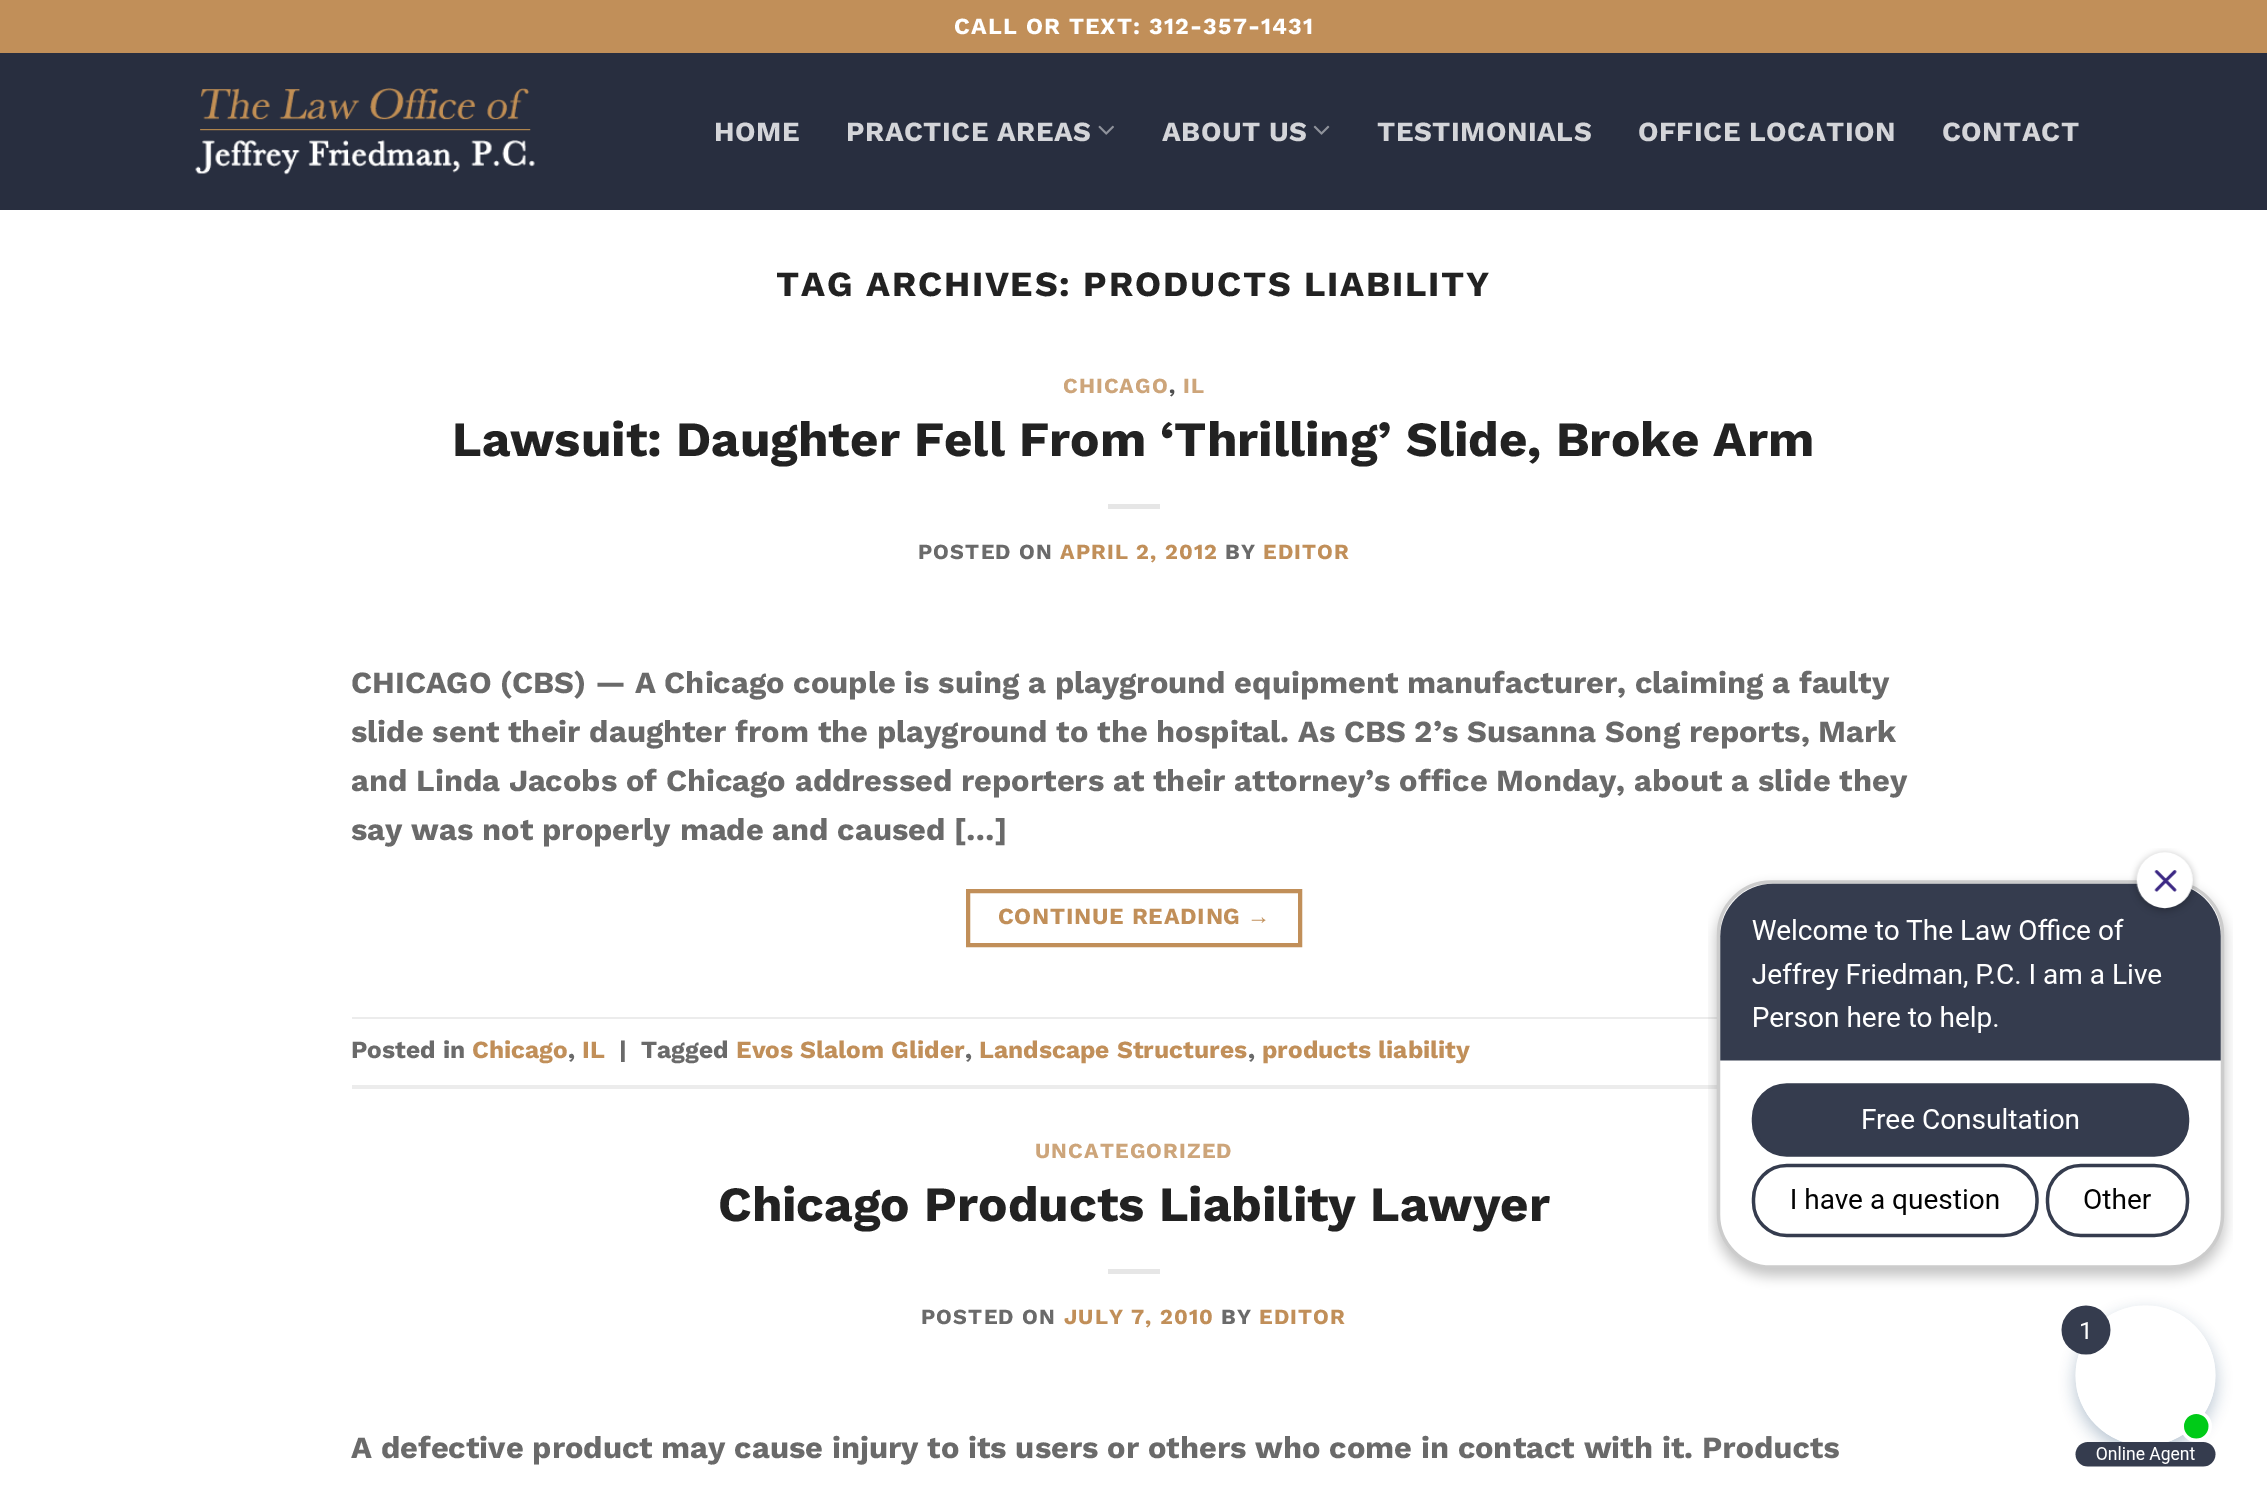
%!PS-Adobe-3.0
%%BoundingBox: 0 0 2267 1487
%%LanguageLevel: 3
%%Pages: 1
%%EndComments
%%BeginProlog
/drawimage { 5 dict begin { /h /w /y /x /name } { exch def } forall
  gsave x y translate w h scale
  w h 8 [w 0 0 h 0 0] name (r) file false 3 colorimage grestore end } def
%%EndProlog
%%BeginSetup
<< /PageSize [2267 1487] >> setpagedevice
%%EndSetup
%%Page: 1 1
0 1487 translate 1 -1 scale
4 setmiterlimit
1 setgray
0 0 2267 1487 rectfill
0.757 0.561 0.349 setrgbcolor
0 0 2267 53 rectfill
0.157 0.18 0.247 setrgbcolor
0 53 2267 157 rectfill
(images/1.raw) 195 88 340 87 drawimage
(images/2.raw) 1098 125 16 10 drawimage
(images/3.raw) 1313 125 17 10 drawimage
0.902 setgray
1108 504 52 5 rectfill
0.757 0.561 0.349 setrgbcolor
4 setlinewidth
968 891 332 54 rectstroke
0.925 setgray
352 1017 1365 2 rectfill
352 1085 1365 4 rectfill
0.902 setgray
1108 1269 52 5 rectfill
/WorkSans-Bold [23.1 0 0 -23.1 0 0] selectfont
1 setgray
954 34 moveto 1.15 0 (CALL OR TEXT: 312-357-1431) ashow
/WorkSans-Bold [27.75 0 0 -27.75 0 0] selectfont
0.831 0.835 0.851 setrgbcolor
714 141 moveto 0.5 0 (HOME) ashow
846 141 moveto 0.5 0 (PRACTICE AREAS) ashow
1162 141 moveto 0.5 0 (ABOUT US) ashow
1377 141 moveto 0.5 0 (TESTIMONIALS) ashow
1638 141 moveto 0.5 0 (OFFICE LOCATION) ashow
1942 141 moveto 0.5 0 (CONTACT) ashow
/WorkSans-Bold [35.4 0 0 -35.4 0 0] selectfont
0.133 setgray
776 296 moveto 1.75 0 (TAG ARCHIVES: PRODUCTS LIABILITY) ashow
/WorkSans-Bold [21.5 0 0 -21.5 0 0] selectfont
0.804 0.647 0.478 setrgbcolor
1063 393 moveto 1.1 0 (CHICAGO) ashow
0.306 setgray
1169 393 moveto 1.1 0 (,) ashow
0.804 0.647 0.478 setrgbcolor
1183 393 moveto 1.1 0 (IL) ashow
/WorkSans-Bold [49.25 0 0 -49.25 0 0] selectfont
0.133 setgray
452 456 moveto (Lawsuit: Daughter Fell From ‘Thrilling’ Slide, Broke Arm) show
/WorkSans-Bold [21.5 0 0 -21.5 0 0] selectfont
0.416 setgray
918 559 moveto 1.1 0 (POSTED ON) ashow
0.757 0.561 0.349 setrgbcolor
1060 559 moveto 1.1 0 (APRIL 2, 2012) ashow
0.416 setgray
1225 559 moveto 1.1 0 (BY) ashow
0.757 0.561 0.349 setrgbcolor
1263 559 moveto 1.1 0 (EDITOR) ashow
/WorkSans-Bold [30.8 0 0 -30.8 0 0] selectfont
0.416 setgray
351 693 moveto (CHICAGO \(CBS\) — A Chicago couple is suing a playground equipment manufacturer, claiming a faulty) show
351 742 moveto (slide sent their daughter from the playground to the hospital. As CBS 2’s Susanna Song reports, Mark) show
351 791 moveto (and Linda Jacobs of Chicago addressed reporters at their attorney’s office Monday, about a slide they) show
351 840 moveto (say was not properly made and caused […]) show
/WorkSans-Bold [23.1 0 0 -23.1 0 0] selectfont
0.757 0.561 0.349 setrgbcolor
998 924 moveto 0.75 0 (CONTINUE READING) ashow
/LiberationSans-Bold [23.1 0 0 -23.1 0 0] selectfont
1247 924 moveto 0.75 0 (→) ashow
/WorkSans-Bold [24.6 0 0 -24.6 0 0] selectfont
0.416 setgray
351 1058 moveto (Posted in) show
0.757 0.561 0.349 setrgbcolor
472 1058 moveto (Chicago) show
0.416 setgray
568 1058 moveto (,) show
0.757 0.561 0.349 setrgbcolor
582 1058 moveto (IL) show
0.416 setgray
619 1058 moveto (|) show
641 1058 moveto (Tagged) show
0.757 0.561 0.349 setrgbcolor
736 1058 moveto (Evos Slalom Glider) show
0.416 setgray
965 1058 moveto (,) show
0.757 0.561 0.349 setrgbcolor
979 1058 moveto (Landscape Structures) show
0.416 setgray
1248 1058 moveto (,) show
0.757 0.561 0.349 setrgbcolor
1262 1058 moveto (products liability) show
/WorkSans-Bold [21.5 0 0 -21.5 0 0] selectfont
0.804 0.647 0.478 setrgbcolor
1035 1158 moveto 1.1 0 (UNCATEGORIZED) ashow
/WorkSans-Bold [49.25 0 0 -49.25 0 0] selectfont
0.133 setgray
718 1221 moveto (Chicago Products Liability Lawyer) show
/WorkSans-Bold [21.5 0 0 -21.5 0 0] selectfont
0.416 setgray
921 1324 moveto 1.1 0 (POSTED ON) ashow
0.757 0.561 0.349 setrgbcolor
1064 1324 moveto 1.1 0 (JULY 7, 2010) ashow
0.416 setgray
1221 1324 moveto 1.1 0 (BY) ashow
0.757 0.561 0.349 setrgbcolor
1259 1324 moveto 1.1 0 (EDITOR) ashow
/WorkSans-Bold [30.8 0 0 -30.8 0 0] selectfont
0.416 setgray
351 1458 moveto (A defective product may cause injury to its users or others who come in contact with it. Products) show
(images/4.raw) 1708 848 525 619 drawimage
showpage
%%EOF
